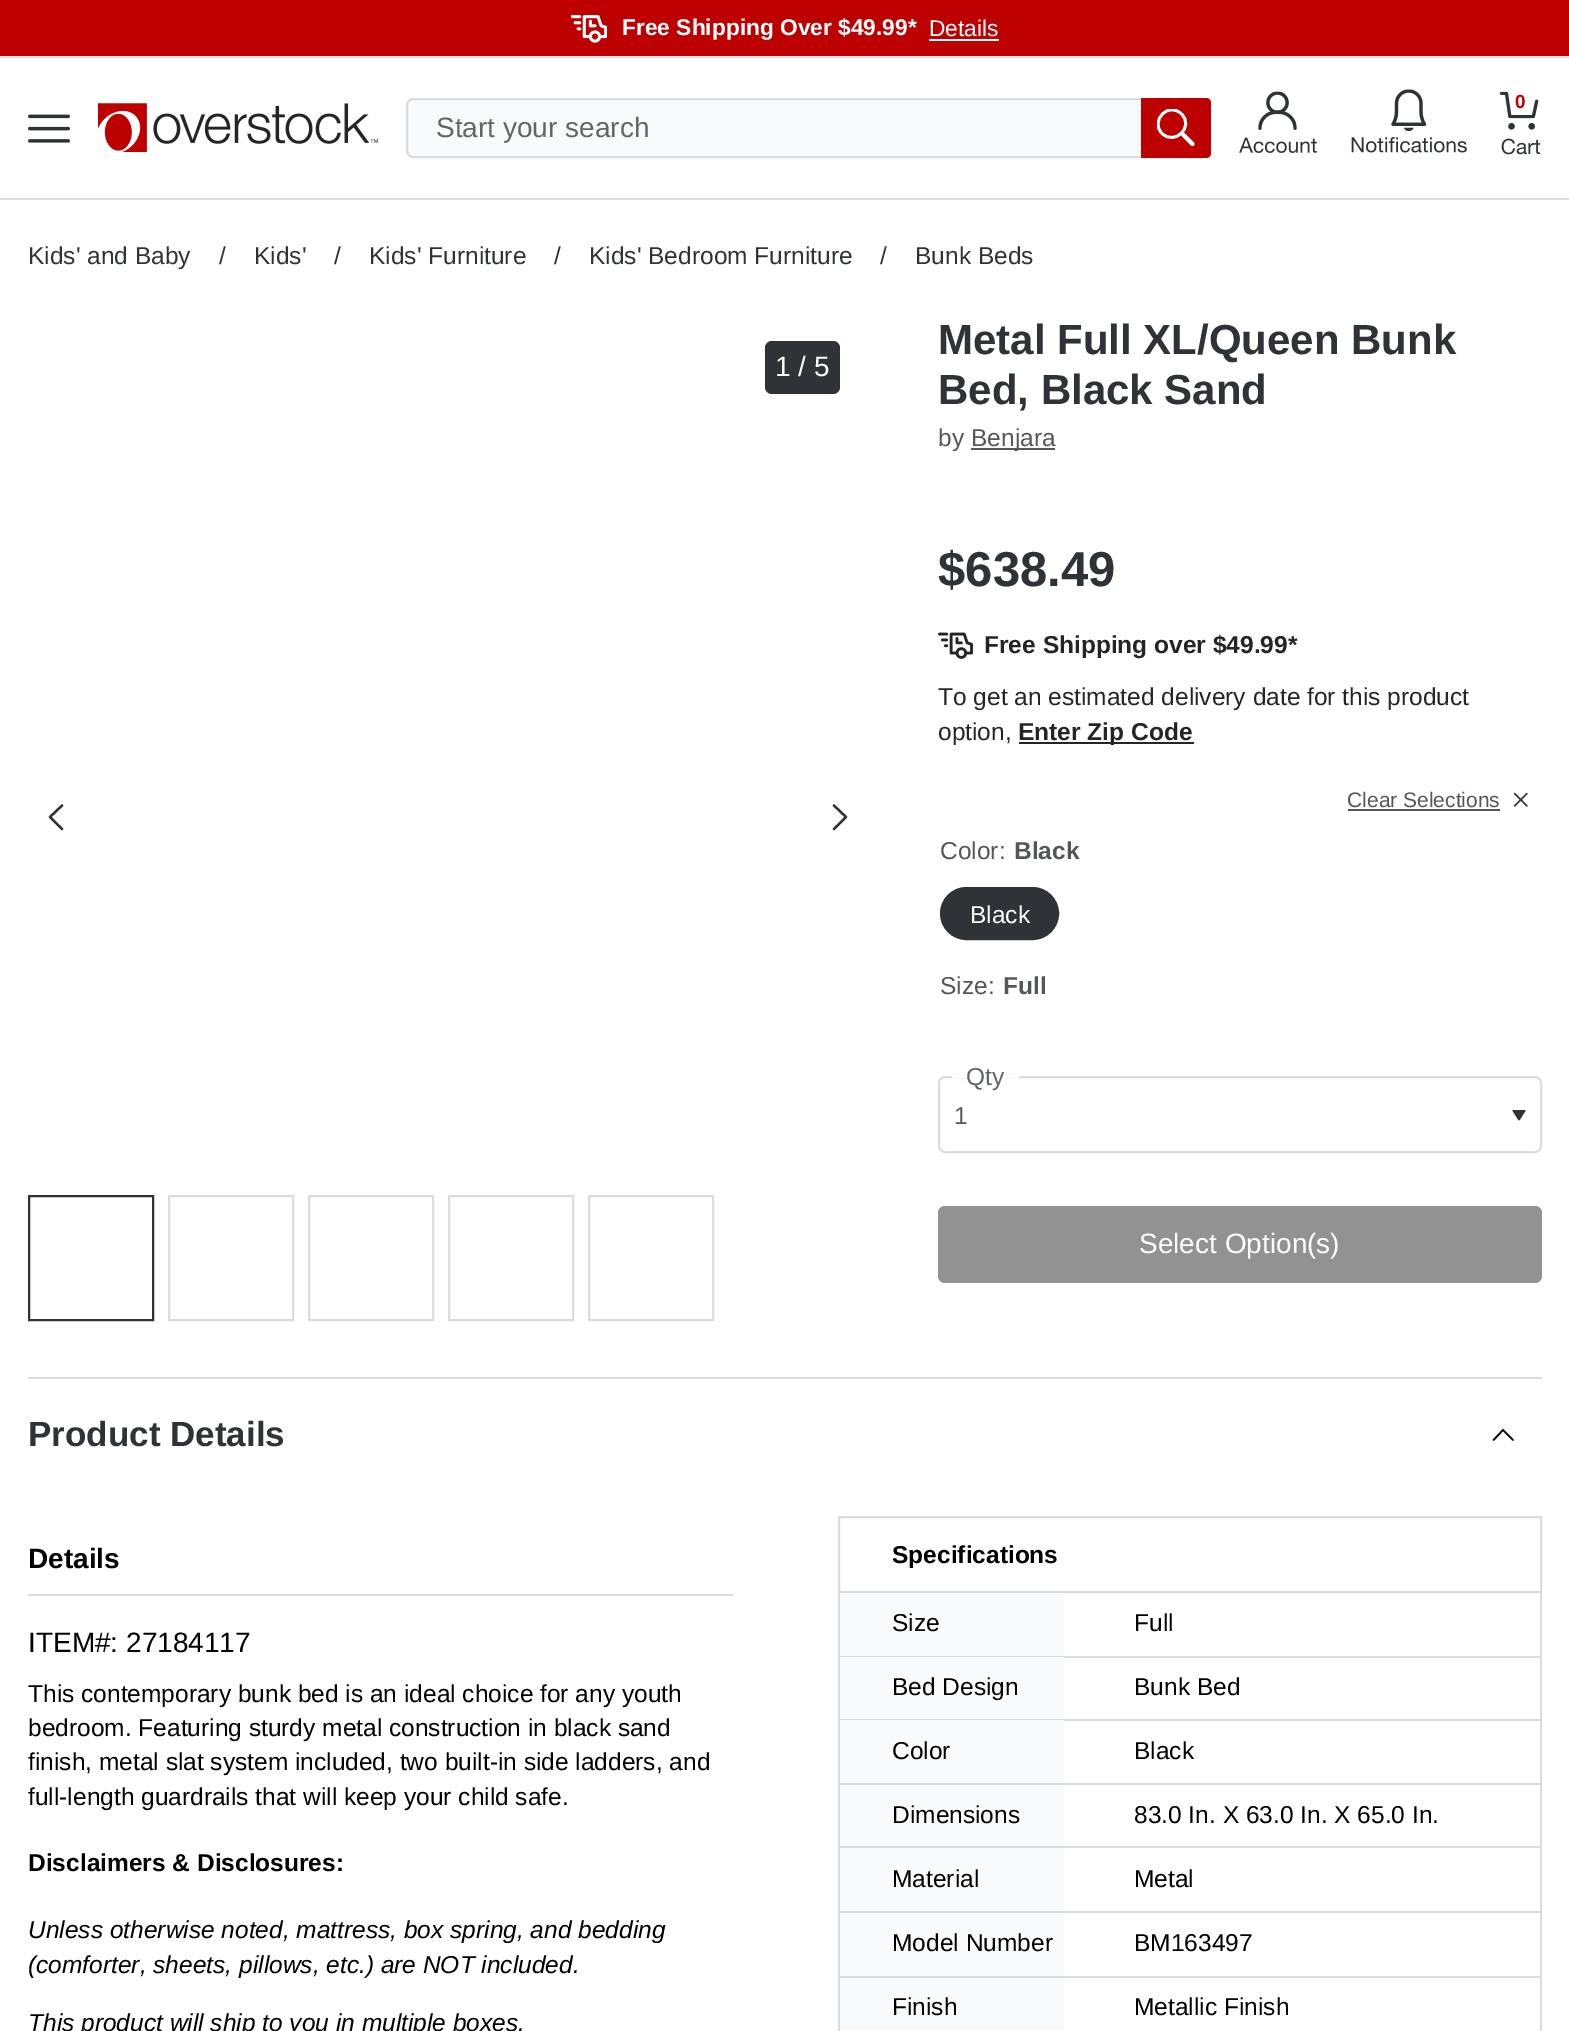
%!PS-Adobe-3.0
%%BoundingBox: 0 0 1569 2031
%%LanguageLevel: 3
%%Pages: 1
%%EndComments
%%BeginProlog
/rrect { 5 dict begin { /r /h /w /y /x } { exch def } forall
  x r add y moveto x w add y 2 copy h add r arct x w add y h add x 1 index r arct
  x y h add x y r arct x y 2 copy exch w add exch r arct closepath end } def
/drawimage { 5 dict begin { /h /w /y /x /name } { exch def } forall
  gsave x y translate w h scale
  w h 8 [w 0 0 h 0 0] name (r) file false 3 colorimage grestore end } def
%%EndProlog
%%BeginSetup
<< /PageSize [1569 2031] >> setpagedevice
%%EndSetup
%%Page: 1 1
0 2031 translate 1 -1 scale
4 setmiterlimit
1 setgray
0 0 1569 2031 rectfill
0.741 0 0 setrgbcolor
0 0 1569 56 rectfill
(images/1.raw) 571 15 36 28 drawimage
1 setgray
929 39 70 2 rectfill
0.855 0.863 0.875 setrgbcolor
0 56 1569 2 rectfill
0 198 1569 2 rectfill
(images/2.raw) 1239 91 78 62 drawimage
(images/3.raw) 1351 89 116 64 drawimage
(images/4.raw) 1500 91 41 64 drawimage
(images/5.raw) 28 114 42 29 drawimage
(images/6.raw) 98 103 280 49 drawimage
0.976 0.98 0.984 setrgbcolor
407 99 803 58 6 rrect gsave fill grestore
0.855 0.863 0.875 setrgbcolor
2 setlinewidth
stroke
0.741 0 0 setrgbcolor
newpath 1141 98 moveto 1206 98 lineto 1209 98 1211 100 1211 103 curveto 1211 153 lineto 1211 156 1209 158 1206 158 curveto 1141 158 lineto closepath fill
1 setgray
4.1 setlinewidth
1 setlinecap
newpath 1192.5 144 moveto 1183 134.5 lineto stroke
gsave
1157 109 38 38 rectclip
2.8 setlinewidth
0 setlinecap
newpath 1181.5 114 moveto 1194.5 126.5 1175 146 1162 133.5 curveto 1149.5 120.5 1169 101 1181.5 114 curveto closepath stroke
grestore
0.184 0.2 0.216 setrgbcolor
765 341 75 53 7 rrect fill
2.3 setlinewidth
1 setlinejoin
newpath 62 805.5 moveto 50 817 lineto 62 829 lineto stroke
newpath 834 829 moveto 846 817 lineto 834 805.5 lineto stroke
2 setlinewidth
0 setlinecap
0 setlinejoin
29 1196 124 124 rectstroke
0.855 0.863 0.875 setrgbcolor
169 1196 124 124 rectstroke
309 1196 124 124 rectstroke
449 1196 124 124 rectstroke
589 1196 124 124 rectstroke
0.329 0.337 0.345 setrgbcolor
971 448 84 2 rectfill
(images/7.raw) 938 632 35 27 drawimage
0.145 setgray
1019 742 175 2 rectfill
0.329 0.337 0.345 setrgbcolor
1348 809 152 2 rectfill
(images/8.raw) 1513 792 15 15 drawimage
0.184 0.2 0.216 setrgbcolor
941 888 117 51 25.5 rrect gsave fill grestore
stroke
(images/9.raw) 1512 1110 14 11 drawimage
0.855 0.863 0.875 setrgbcolor
939 1077 602 75 6 rrect stroke
1 setgray
952 1076 67 2 rectfill
0.573 setgray
938 1206 604 77 7 rrect fill
0.855 0.863 0.875 setrgbcolor
28 1377 1514 2 rectfill
0 setgray
1.6 setlinewidth
1 setlinecap
newpath 1493.5 1440 moveto 1503 1430 lineto 1513 1440 lineto stroke
0.855 0.863 0.875 setrgbcolor
28 1594 705 2 rectfill
2 setlinewidth
0 setlinecap
839 1517 702 75 rectstroke
1540 1593 2 64 rectfill
838 1656 704 2 rectfill
838 1593 2 64 rectfill
0.976 0.98 0.984 setrgbcolor
840 1593 224 63 rectfill
0.855 0.863 0.875 setrgbcolor
1540 1657 2 63 rectfill
838 1719 704 2 rectfill
838 1657 2 63 rectfill
0.976 0.98 0.984 setrgbcolor
840 1657 224 62 rectfill
0.855 0.863 0.875 setrgbcolor
1540 1720 2 311 rectfill
838 1783 704 2 rectfill
838 1720 2 65 rectfill
0.976 0.98 0.984 setrgbcolor
840 1720 224 63 rectfill
0.855 0.863 0.875 setrgbcolor
838 1846 704 2 rectfill
838 1785 2 63 rectfill
0.976 0.98 0.984 setrgbcolor
840 1785 224 61 rectfill
0.855 0.863 0.875 setrgbcolor
838 1911 704 2 rectfill
838 1848 2 65 rectfill
0.976 0.98 0.984 setrgbcolor
840 1848 224 63 rectfill
0.855 0.863 0.875 setrgbcolor
838 1976 704 2 rectfill
838 1913 2 118 rectfill
0.976 0.98 0.984 setrgbcolor
840 1913 224 63 rectfill
840 1978 224 53 rectfill
/LiberationSans-Bold [22.75 0 0 -22.75 0 0] selectfont
1 setgray
622 35 moveto (Free Shipping Over $49.99*) show
/LiberationSans-Regular [22.75 0 0 -22.75 0 0] selectfont
929 36 moveto (Details) show
/LiberationSans-Bold [19 0 0 -19 0 0] selectfont
0.741 0 0 setrgbcolor
1515 108 moveto (0) show
/LiberationSans-Regular [28 0 0 -28 0 0] selectfont
0.384 0.4 0.412 setrgbcolor
436 137 moveto (Start your search) show
/LiberationSans-Regular [24.5 0 0 -24.5 0 0] selectfont
0.184 0.2 0.216 setrgbcolor
28 264 moveto (Kids' and Baby) show
219 264 moveto (/) show
254 264 moveto (Kids') show
334 264 moveto (/) show
369 264 moveto (Kids' Furniture) show
554 264 moveto (/) show
589 264 moveto (Kids' Bedroom Furniture) show
880 264 moveto (/) show
915 264 moveto (Bunk Beds) show
/LiberationSans-Regular [28 0 0 -28 0 0] selectfont
1 setgray
775 376 moveto (1 / 5) show
/LiberationSans-Bold [42 0 0 -42 0 0] selectfont
0.184 0.2 0.216 setrgbcolor
938 354 moveto (Metal Full XL/Queen Bunk) show
938 404 moveto (Bed, Black Sand) show
/LiberationSans-Regular [24.5 0 0 -24.5 0 0] selectfont
0.329 0.337 0.345 setrgbcolor
938 446 moveto (by) show
971 446 moveto (Benjara) show
/LiberationSans-Bold [49 0 0 -49 0 0] selectfont
0.184 0.2 0.216 setrgbcolor
938 586 moveto ($638.49) show
/LiberationSans-Bold [24.5 0 0 -24.5 0 0] selectfont
0.145 setgray
984 653 moveto (Free Shipping over $49.99*) show
/LiberationSans-Regular [24.5 0 0 -24.5 0 0] selectfont
938 705 moveto (To get an estimated delivery date for this product) show
938 740 moveto (option,) show
/LiberationSans-Bold [24.5 0 0 -24.5 0 0] selectfont
1018 740 moveto (Enter Zip Code) show
/LiberationSans-Regular [21 0 0 -21 0 0] selectfont
0.329 0.337 0.345 setrgbcolor
1347 807 moveto (Clear Selections) show
/LiberationSans-Regular [24.5 0 0 -24.5 0 0] selectfont
940 859 moveto (Color:) show
/LiberationSans-Bold [24.5 0 0 -24.5 0 0] selectfont
1014 859 moveto (Black) show
/LiberationSans-Regular [24.5 0 0 -24.5 0 0] selectfont
1 setgray
970 923 moveto (Black) show
0.329 0.337 0.345 setrgbcolor
940 994 moveto (Size:) show
/LiberationSans-Bold [24.5 0 0 -24.5 0 0] selectfont
1003 994 moveto (Full) show
/LiberationSans-Regular [24.5 0 0 -24.5 0 0] selectfont
0.384 0.4 0.412 setrgbcolor
966 1085 moveto (Qty) show
0.329 0.337 0.345 setrgbcolor
954 1124 moveto (1) show
/LiberationSans-Regular [28 0 0 -28 0 0] selectfont
1 setgray
1139 1253 moveto (Select Option\(s\)) show
/LiberationSans-Bold [35 0 0 -35 0 0] selectfont
0.184 0.2 0.216 setrgbcolor
28 1446 moveto (Product Details) show
/LiberationSans-Bold [28 0 0 -28 0 0] selectfont
0 setgray
28 1568 moveto (Details) show
/LiberationSans-Regular [28 0 0 -28 0 0] selectfont
28 1652 moveto (ITEM#: 27184117) show
/LiberationSans-Regular [24.5 0 0 -24.5 0 0] selectfont
28 1702 moveto (This contemporary bunk bed is an ideal choice for any youth) show
28 1736 moveto (bedroom. Featuring sturdy metal construction in black sand) show
28 1770 moveto (finish, metal slat system included, two built-in side ladders, and) show
28 1805 moveto (full-length guardrails that will keep your child safe.) show
/LiberationSans-Bold [24.5 0 0 -24.5 0 0] selectfont
28 1871 moveto (Disclaimers & Disclosures:) show
/LiberationSans-Italic [24.5 0 0 -24.5 0 0] selectfont
28 1938 moveto (Unless otherwise noted, mattress, box spring, and bedding) show
28 1973 moveto (\(comforter, sheets, pillows, etc.\) are NOT included.) show
28 2031 moveto (This product will ship to you in multiple boxes.) show
/LiberationSans-Bold [24.5 0 0 -24.5 0 0] selectfont
892 1563 moveto (Specifications) show
/LiberationSans-Regular [24.5 0 0 -24.5 0 0] selectfont
892 1631 moveto (Size) show
1134 1631 moveto (Full) show
892 1695 moveto (Bed Design) show
1134 1695 moveto (Bunk Bed) show
892 1759 moveto (Color) show
1134 1759 moveto (Black) show
892 1823 moveto (Dimensions) show
1134 1823 moveto (83.0 In. X 63.0 In. X 65.0 In.) show
892 1887 moveto (Material) show
1134 1887 moveto (Metal) show
892 1951 moveto (Model Number) show
1134 1951 moveto (BM163497) show
892 2015 moveto (Finish) show
1134 2015 moveto (Metallic Finish) show
showpage
%%EOF
